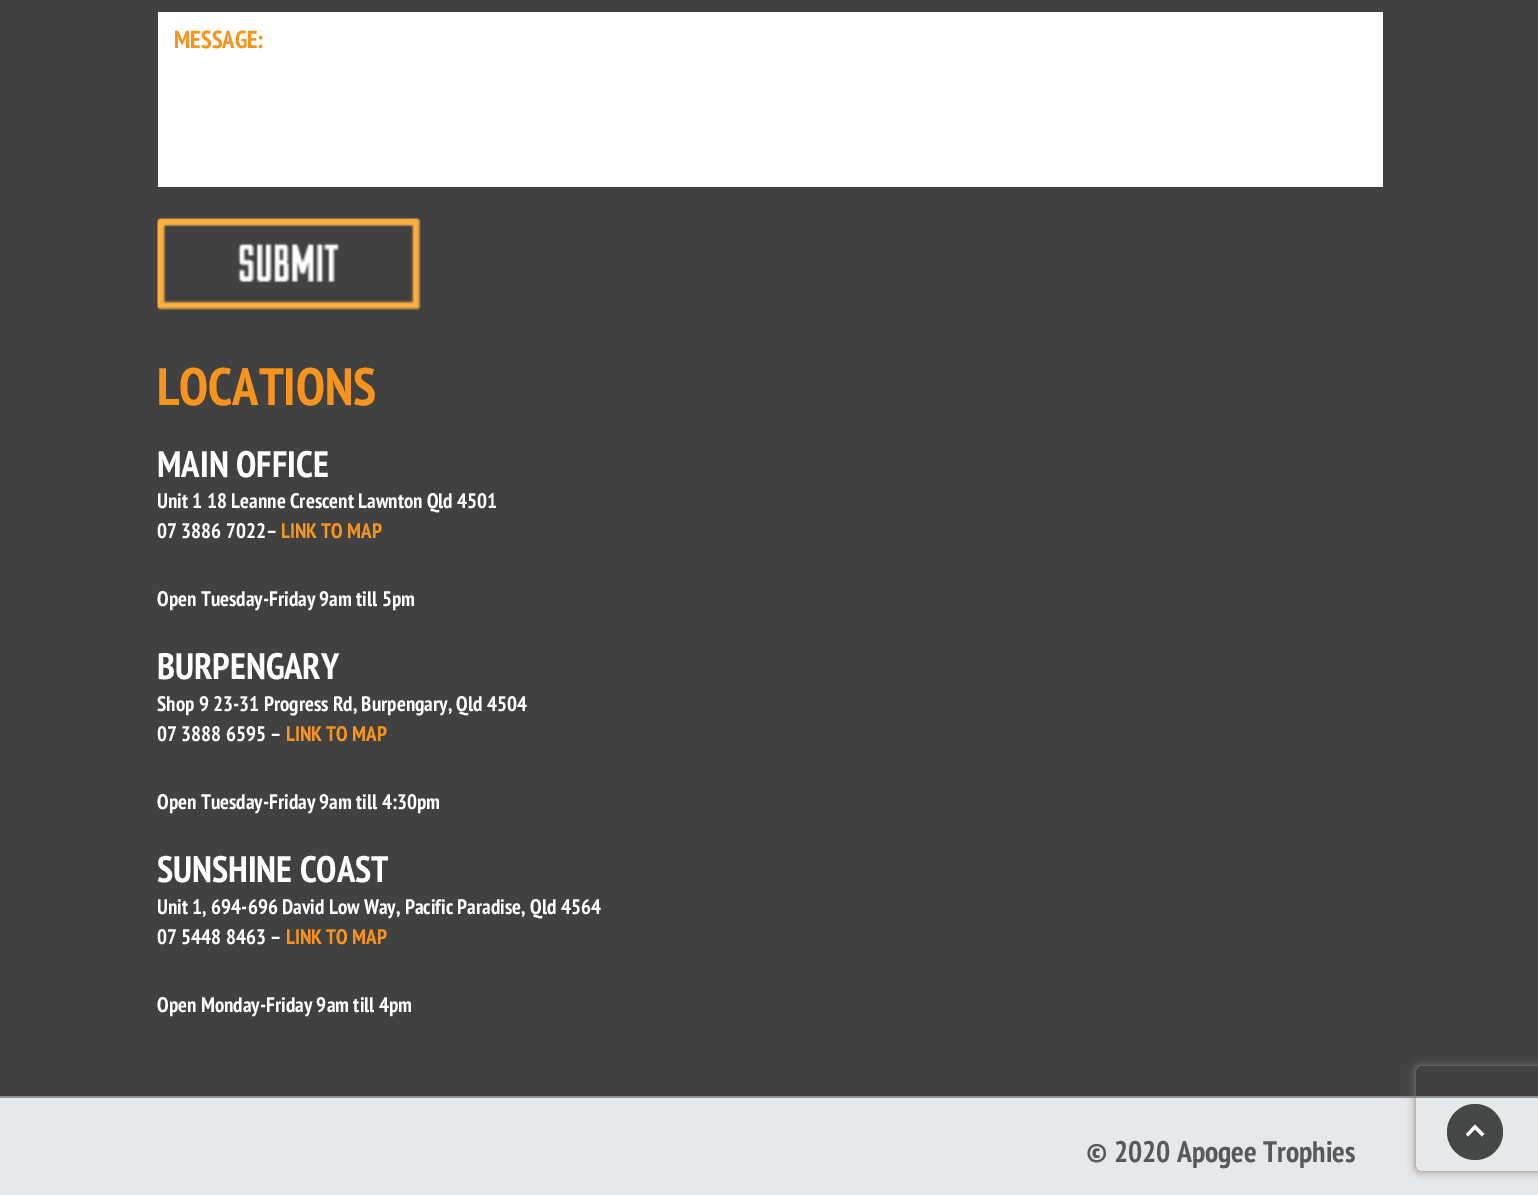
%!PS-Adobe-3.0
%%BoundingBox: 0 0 1538 1195
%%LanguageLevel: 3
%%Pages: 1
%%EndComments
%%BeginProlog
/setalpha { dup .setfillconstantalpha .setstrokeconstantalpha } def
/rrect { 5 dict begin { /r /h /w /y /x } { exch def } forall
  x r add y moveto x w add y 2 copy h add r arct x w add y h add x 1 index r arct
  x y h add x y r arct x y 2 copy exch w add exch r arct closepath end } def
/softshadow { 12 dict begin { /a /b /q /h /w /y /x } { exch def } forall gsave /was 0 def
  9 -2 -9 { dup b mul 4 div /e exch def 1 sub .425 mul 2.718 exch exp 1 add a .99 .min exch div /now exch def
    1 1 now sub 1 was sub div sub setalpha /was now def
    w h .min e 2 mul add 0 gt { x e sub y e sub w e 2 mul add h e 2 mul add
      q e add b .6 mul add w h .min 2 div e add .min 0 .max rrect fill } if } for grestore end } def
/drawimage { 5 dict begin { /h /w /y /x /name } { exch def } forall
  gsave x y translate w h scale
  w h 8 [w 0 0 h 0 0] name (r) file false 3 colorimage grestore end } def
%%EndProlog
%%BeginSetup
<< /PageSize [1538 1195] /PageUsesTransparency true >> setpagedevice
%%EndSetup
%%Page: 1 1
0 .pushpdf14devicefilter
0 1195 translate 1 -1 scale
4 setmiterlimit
0.255 0.255 0.259 setrgbcolor
0 0 1538 1195 rectfill
1 setgray
158 12 1225 175 rectfill
(images/1.raw) 157 217 264 93 drawimage
0.906 0.91 0.914 setrgbcolor
0 1098 1538 97 rectfill
0.561 0.565 0.573 setrgbcolor
0 1096 1538 2 rectfill
0.271 0.275 0.275 setrgbcolor
newpath 1475 1132 28 0 360 arc closepath fill
0.973 setgray
newpath 1482 1136.5 moveto 1475 1129.5 lineto 1468 1136.5 lineto 1466 1134 lineto 1475 1124.5 lineto 1484.5 1134 lineto closepath fill
gsave
newpath 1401 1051 moveto 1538 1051 lineto 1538 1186 lineto 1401 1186 lineto closepath 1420 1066 moveto 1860 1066 lineto 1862 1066 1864 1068 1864 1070 curveto 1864 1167 lineto 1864 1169 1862 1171 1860 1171 curveto 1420 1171 lineto 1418 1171 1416 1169 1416 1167 curveto 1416 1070 lineto 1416 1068 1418 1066 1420 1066 curveto closepath eoclip newpath
0.502 setgray
1416 1066 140 105 4 4.5 1 softshadow
grestore
/PTSansNarrow-Bold [24.5 0 0 -24.5 0 0] selectfont
0.969 0.58 0.114 setrgbcolor
174 48 moveto (MESSAGE:) show
/PTSansNarrow-Bold [52.5 0 0 -52.5 0 0] selectfont
157 405 moveto (LOCATIONS) show
/PTSansNarrow-Bold [36.75 0 0 -36.75 0 0] selectfont
1 setgray
157 477 moveto (MAIN OFFICE) show
/PTSansNarrow-Bold [21 0 0 -21 0 0] selectfont
157 508 moveto (Unit 1 18 Leanne Crescent Lawnton Qld 4501) show
157 538 moveto (07 3886 7022–) show
0.969 0.58 0.114 setrgbcolor
281 538 moveto (LINK TO MAP) show
1 setgray
157 606 moveto (Open Tuesday-Friday 9am till 5pm) show
/PTSansNarrow-Bold [36.75 0 0 -36.75 0 0] selectfont
157 679 moveto (BURPENGARY) show
/PTSansNarrow-Bold [21 0 0 -21 0 0] selectfont
157 711 moveto (Shop 9 23-31 Progress Rd, Burpengary, Qld 4504) show
157 741 moveto (07 3888 6595 –) show
0.969 0.58 0.114 setrgbcolor
286 741 moveto (LINK TO MAP) show
1 setgray
157 809 moveto (Open Tuesday-Friday 9am till 4:30pm) show
/PTSansNarrow-Bold [36.75 0 0 -36.75 0 0] selectfont
157 882 moveto (SUNSHINE COAST) show
/PTSansNarrow-Bold [21 0 0 -21 0 0] selectfont
157 914 moveto (Unit 1, 694-696 David Low Way, Pacific Paradise, Qld 4564) show
157 944 moveto (07 5448 8463 –) show
0.969 0.58 0.114 setrgbcolor
286 944 moveto (LINK TO MAP) show
1 setgray
157 1012 moveto (Open Monday-Friday 9am till 4pm) show
/PTSansNarrow-Bold [29.75 0 0 -29.75 0 0] selectfont
0.345 0.349 0.357 setrgbcolor
1086 1162 moveto (© 2020 Apogee Trophies) show
.poppdf14devicefilter showpage
%%EOF
